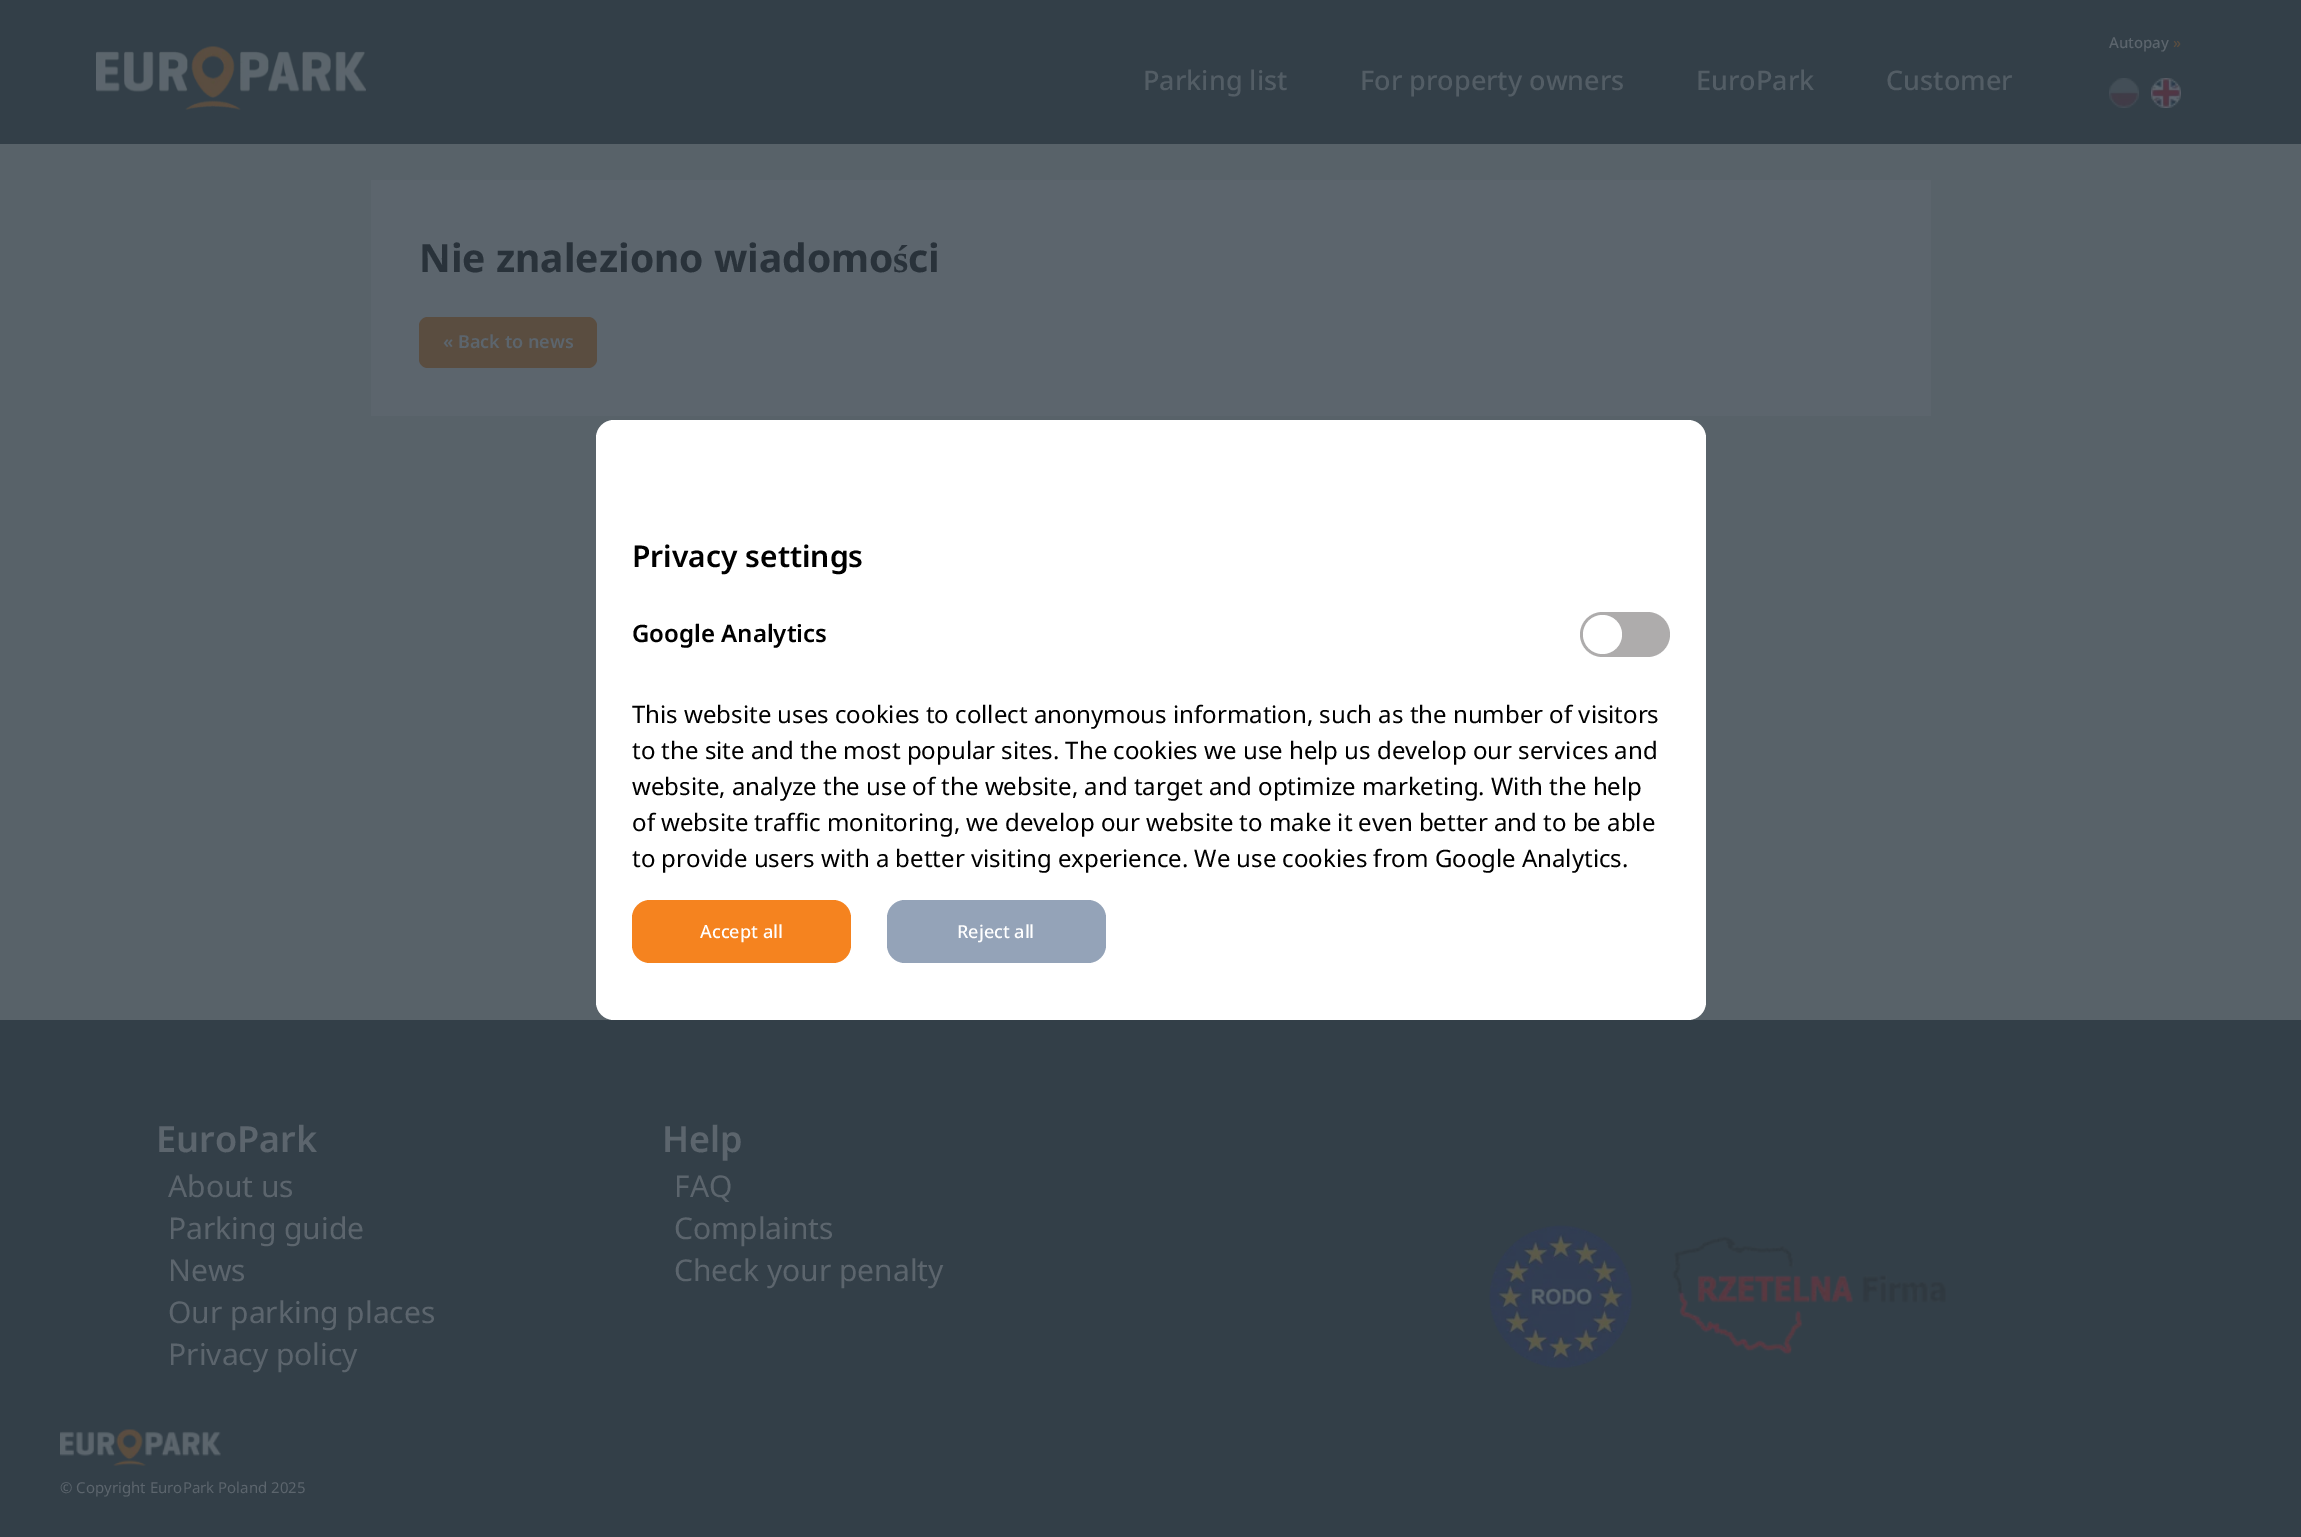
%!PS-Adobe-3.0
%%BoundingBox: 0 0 2301 1537
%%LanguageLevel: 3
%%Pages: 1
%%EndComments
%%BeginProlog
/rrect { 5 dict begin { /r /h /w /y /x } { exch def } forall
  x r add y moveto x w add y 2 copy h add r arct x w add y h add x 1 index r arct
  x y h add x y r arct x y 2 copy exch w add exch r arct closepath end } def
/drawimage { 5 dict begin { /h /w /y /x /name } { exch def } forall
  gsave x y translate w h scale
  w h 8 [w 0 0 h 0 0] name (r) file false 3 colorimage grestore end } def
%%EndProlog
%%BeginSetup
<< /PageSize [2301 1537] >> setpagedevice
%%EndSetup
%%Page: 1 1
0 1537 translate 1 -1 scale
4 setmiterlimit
0.345 0.384 0.412 setrgbcolor
0 0 2301 1537 rectfill
0.2 0.247 0.282 setrgbcolor
0 0 2301 144 rectfill
(images/1.raw) 96 46 270 64 drawimage
(images/2.raw) 2109 78 30 30 drawimage
(images/3.raw) 2151 78 30 30 drawimage
0.361 0.396 0.427 setrgbcolor
371 180 1560 236 rectfill
0.353 0.302 0.251 setrgbcolor
419 317 178 51 9 rrect fill
1 setgray
596 420 1110 600 18 rrect fill
0.682 0.675 0.675 setrgbcolor
1580 612 90 45 22.5 rrect fill
1 setgray
newpath 1602.5 634.5 19.5 0 360 arc closepath fill
0.961 0.514 0.122 setrgbcolor
632 900 219 63 18 rrect fill
0.58 0.639 0.722 setrgbcolor
887 900 219 63 18 rrect fill
0.2 0.247 0.282 setrgbcolor
0 1020 2301 517 rectfill
(images/4.raw) 1489 1225 144 144 drawimage
(images/5.raw) 1672 1236 274 119 drawimage
(images/6.raw) 60 1429 161 37 drawimage
/NotoSans-Medium [15 0 0 -15 0 0] selectfont
0.361 0.396 0.427 setrgbcolor
2109 48 moveto (Autopay) show
0.353 0.302 0.251 setrgbcolor
2173 48 moveto (») show
/NotoSans-Medium [27 0 0 -27 0 0] selectfont
0.325 0.365 0.396 setrgbcolor
1143 90 moveto (Parking list) show
1360 90 moveto (For property owners) show
1696 90 moveto (EuroPark) show
1886 90 moveto (Customer) show
/NotoSans-Bold [39 0 0 -39 0 0] selectfont
0.161 0.196 0.227 setrgbcolor
419 272 moveto (Nie znaleziono wiadomo) show
/LiberationSerif-Bold [39 0 0 -39 0 0] selectfont
893 272 moveto (ś) show
/NotoSans-Bold [39 0 0 -39 0 0] selectfont
908 272 moveto (ci) show
/NotoSans-SemiBold [18 0 0 -18 0 0] selectfont
0.361 0.396 0.427 setrgbcolor
443 348 moveto (« Back to news) show
/NotoSans-SemiBold [30 0 0 -30 0 0] selectfont
0 setgray
632 567 moveto (Privacy settings) show
/NotoSans-SemiBold [24 0 0 -24 0 0] selectfont
632 642 moveto (Google Analytics) show
/NotoSans-Regular [24 0 0 -24 0 0] selectfont
632 723 moveto (This website uses cookies to collect anonymous information, such as the number of visitors) show
632 759 moveto (to the site and the most popular sites. The cookies we use help us develop our services and) show
632 795 moveto (website, analyze the use of the website, and target and optimize marketing. With the help) show
632 831 moveto (of website traffic monitoring, we develop our website to make it even better and to be able) show
632 867 moveto (to provide users with a better visiting experience. We use cookies from Google Analytics.) show
/NotoSans-Medium [18 0 0 -18 0 0] selectfont
1 setgray
700 938 moveto (Accept all) show
957 938 moveto (Reject all) show
/NotoSans-SemiBold [36 0 0 -36 0 0] selectfont
0.361 0.396 0.427 setrgbcolor
156 1152 moveto (EuroPark) show
/NotoSans-Regular [30 0 0 -30 0 0] selectfont
168 1197 moveto (About us) show
168 1239 moveto (Parking guide) show
168 1281 moveto (News) show
168 1323 moveto (Our parking places) show
168 1365 moveto (Privacy policy) show
/NotoSans-SemiBold [36 0 0 -36 0 0] selectfont
662 1152 moveto (Help) show
/NotoSans-Regular [30 0 0 -30 0 0] selectfont
674 1197 moveto (FAQ) show
674 1239 moveto (Complaints) show
674 1281 moveto (Check your penalty) show
/NotoSans-Regular [15 0 0 -15 0 0] selectfont
60 1493 moveto (© Copyright EuroPark Poland 2025) show
showpage
%%EOF
